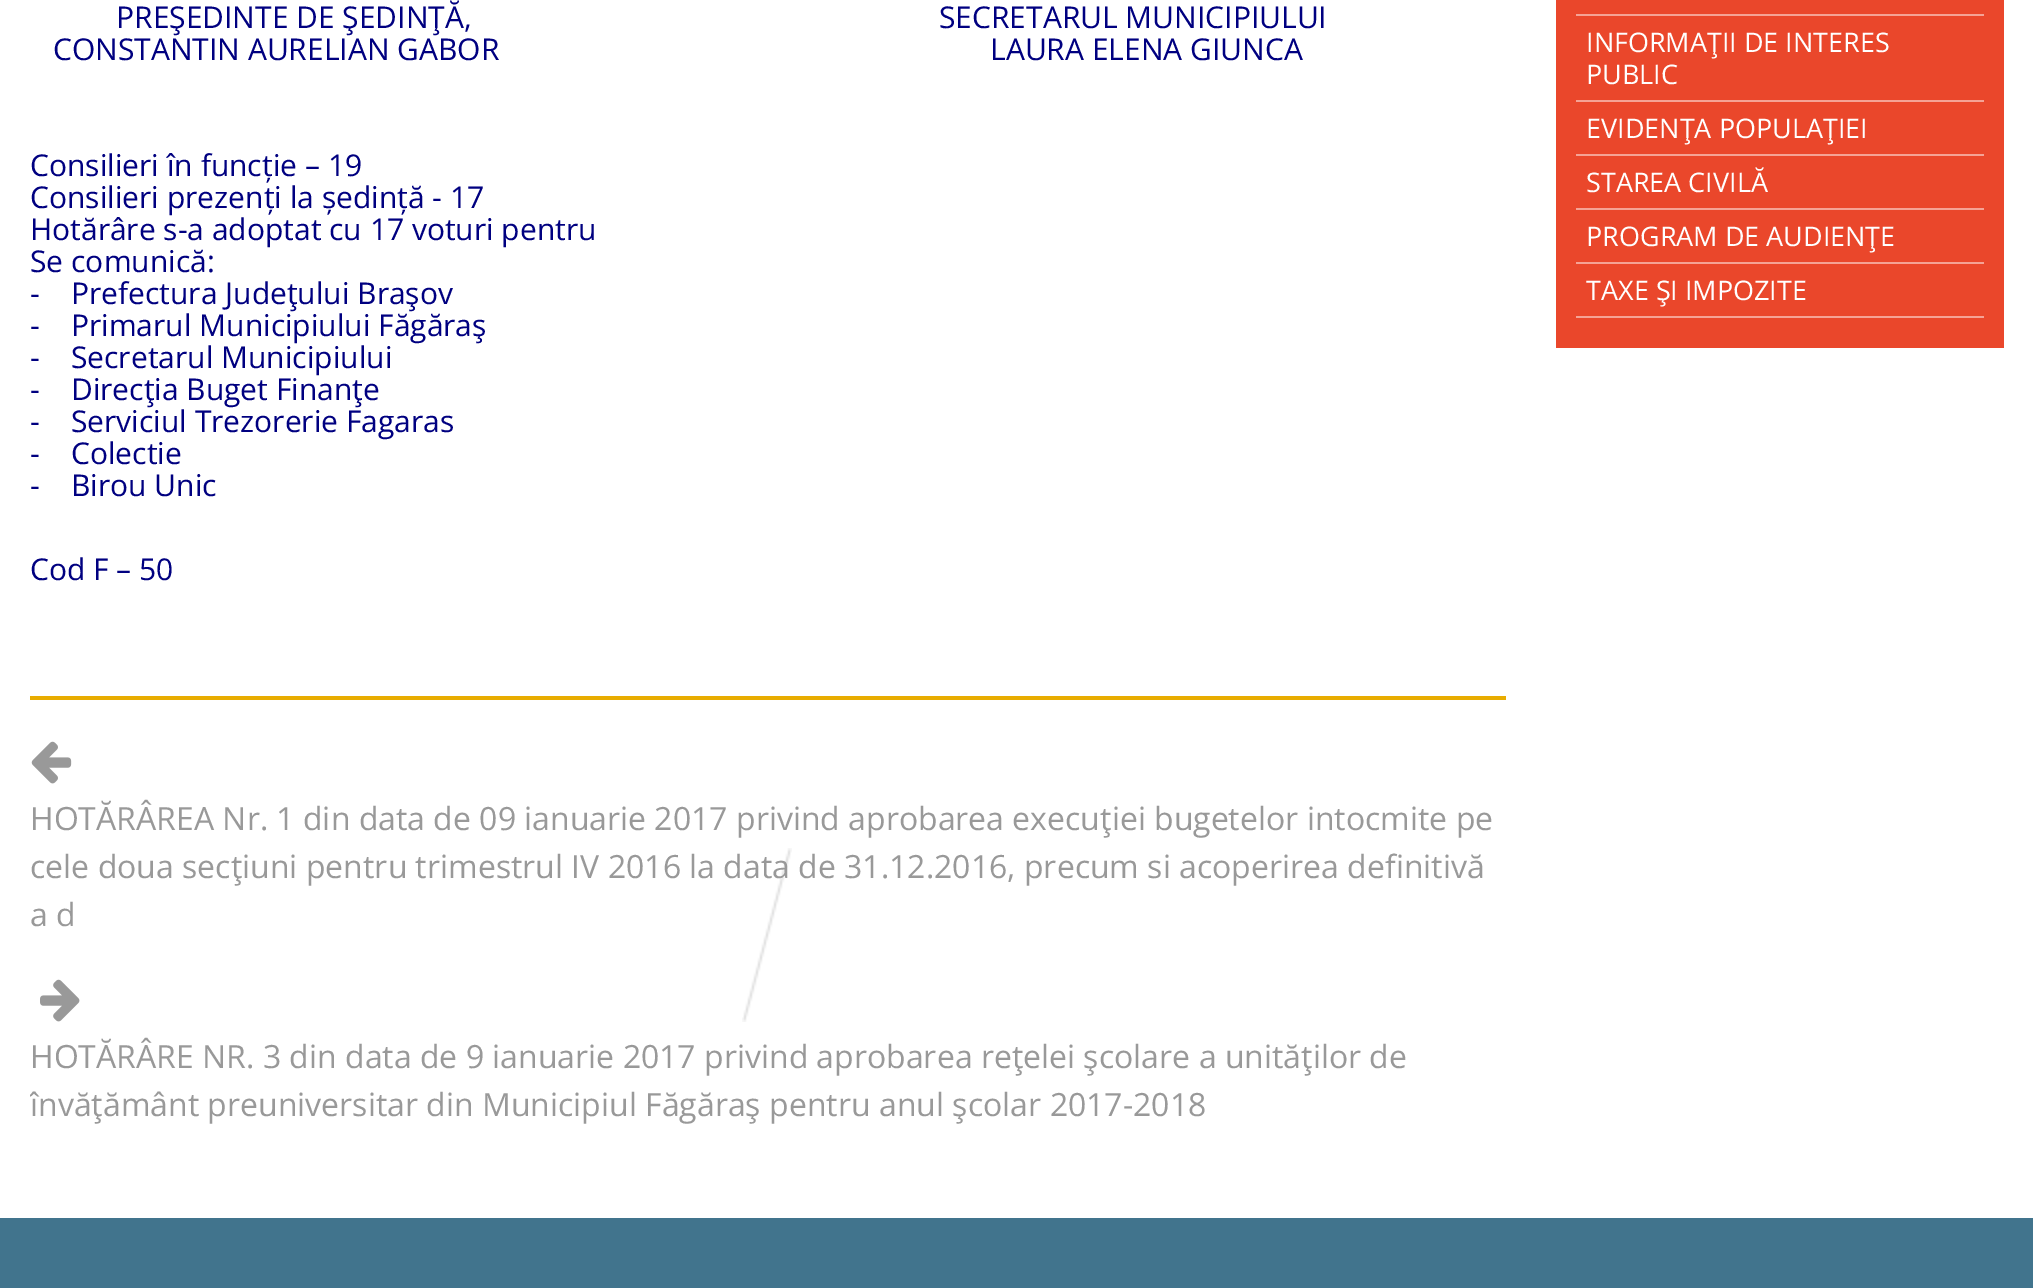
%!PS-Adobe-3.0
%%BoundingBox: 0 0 2033 1288
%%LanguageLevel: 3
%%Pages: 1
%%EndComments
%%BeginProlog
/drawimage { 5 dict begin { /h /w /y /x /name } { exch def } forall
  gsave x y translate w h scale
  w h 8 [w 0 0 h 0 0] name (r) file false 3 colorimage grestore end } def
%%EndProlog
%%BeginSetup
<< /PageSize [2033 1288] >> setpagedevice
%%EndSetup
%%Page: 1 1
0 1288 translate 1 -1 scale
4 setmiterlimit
1 setgray
0 0 2033 1288 rectfill
(images/1.raw) 742 848 50 174 drawimage
0.91 0.675 0 setrgbcolor
30 696 1476 4 rectfill
(images/2.raw) 31 741 41 43 drawimage
(images/3.raw) 40 979 40 43 drawimage
0.918 0.278 0.169 setrgbcolor
1556 0 448 348 rectfill
0.961 0.639 0.584 setrgbcolor
1576 14 408 2 rectfill
1576 100 408 2 rectfill
1576 154 408 2 rectfill
1576 208 408 2 rectfill
1576 262 408 2 rectfill
1576 316 408 2 rectfill
0.255 0.455 0.553 setrgbcolor
0 1218 2033 70 rectfill
/OpenSans-Regular [30 0 0 -30 0 0] selectfont
0 0 0.502 setrgbcolor
116 28 moveto (PREŞEDINTE DE ŞEDINŢĂ,                                                            SECRETARUL MUNICIPIULUI) show
53 60 moveto (CONSTANTIN AURELIAN GABOR                                                               LAURA ELENA GIUNCA) show
30 176 moveto (Consilieri în funcție – 19) show
30 208 moveto (Consilieri prezenți la ședință - 17) show
30 240 moveto (Hotărâre s-a adoptat cu 17 voturi pentru) show
30 272 moveto (Se comunică:) show
30 304 moveto (-    Prefectura Judeţului Braşov) show
30 336 moveto (-    Primarul Municipiului Făgăraş) show
30 368 moveto (-    Secretarul Municipiului) show
30 400 moveto (-    Direcţia Buget Finanţe) show
30 432 moveto (-    Serviciul Trezorerie Fagaras) show
30 464 moveto (-    Colectie) show
30 496 moveto (-    Birou Unic) show
30 580 moveto (Cod F – 50) show
/OpenSans-Regular [32 0 0 -32 0 0] selectfont
0.6 setgray
30 830 moveto (HOTĂRÂREA Nr. 1 din data de 09 ianuarie 2017 privind aprobarea execuţiei bugetelor intocmite pe) show
30 878 moveto (cele doua secţiuni pentru trimestrul IV 2016 la data de 31.12.2016, precum si acoperirea definitivă) show
30 926 moveto (a d) show
30 1068 moveto (HOTĂRÂRE NR. 3 din data de 9 ianuarie 2017 privind aprobarea reţelei şcolare a unităţilor de) show
gsave
30 0 1496 1168 rectclip
30 1116 moveto (învăţământ preuniversitar din Municipiul Făgăraş pentru) show
grestore
879 1116 moveto (anul şcolar 2017-2018) show
/OpenSans-Regular [27 0 0 -27 0 0] selectfont
1 setgray
1586 52 moveto (INFORMAŢII DE INTERES) show
1586 84 moveto (PUBLIC) show
1586 138 moveto (EVIDENŢA POPULAŢIEI) show
1586 192 moveto (STAREA CIVILĂ) show
1586 246 moveto (PROGRAM DE AUDIENŢE) show
1586 300 moveto (TAXE ŞI IMPOZITE) show
showpage
%%EOF
